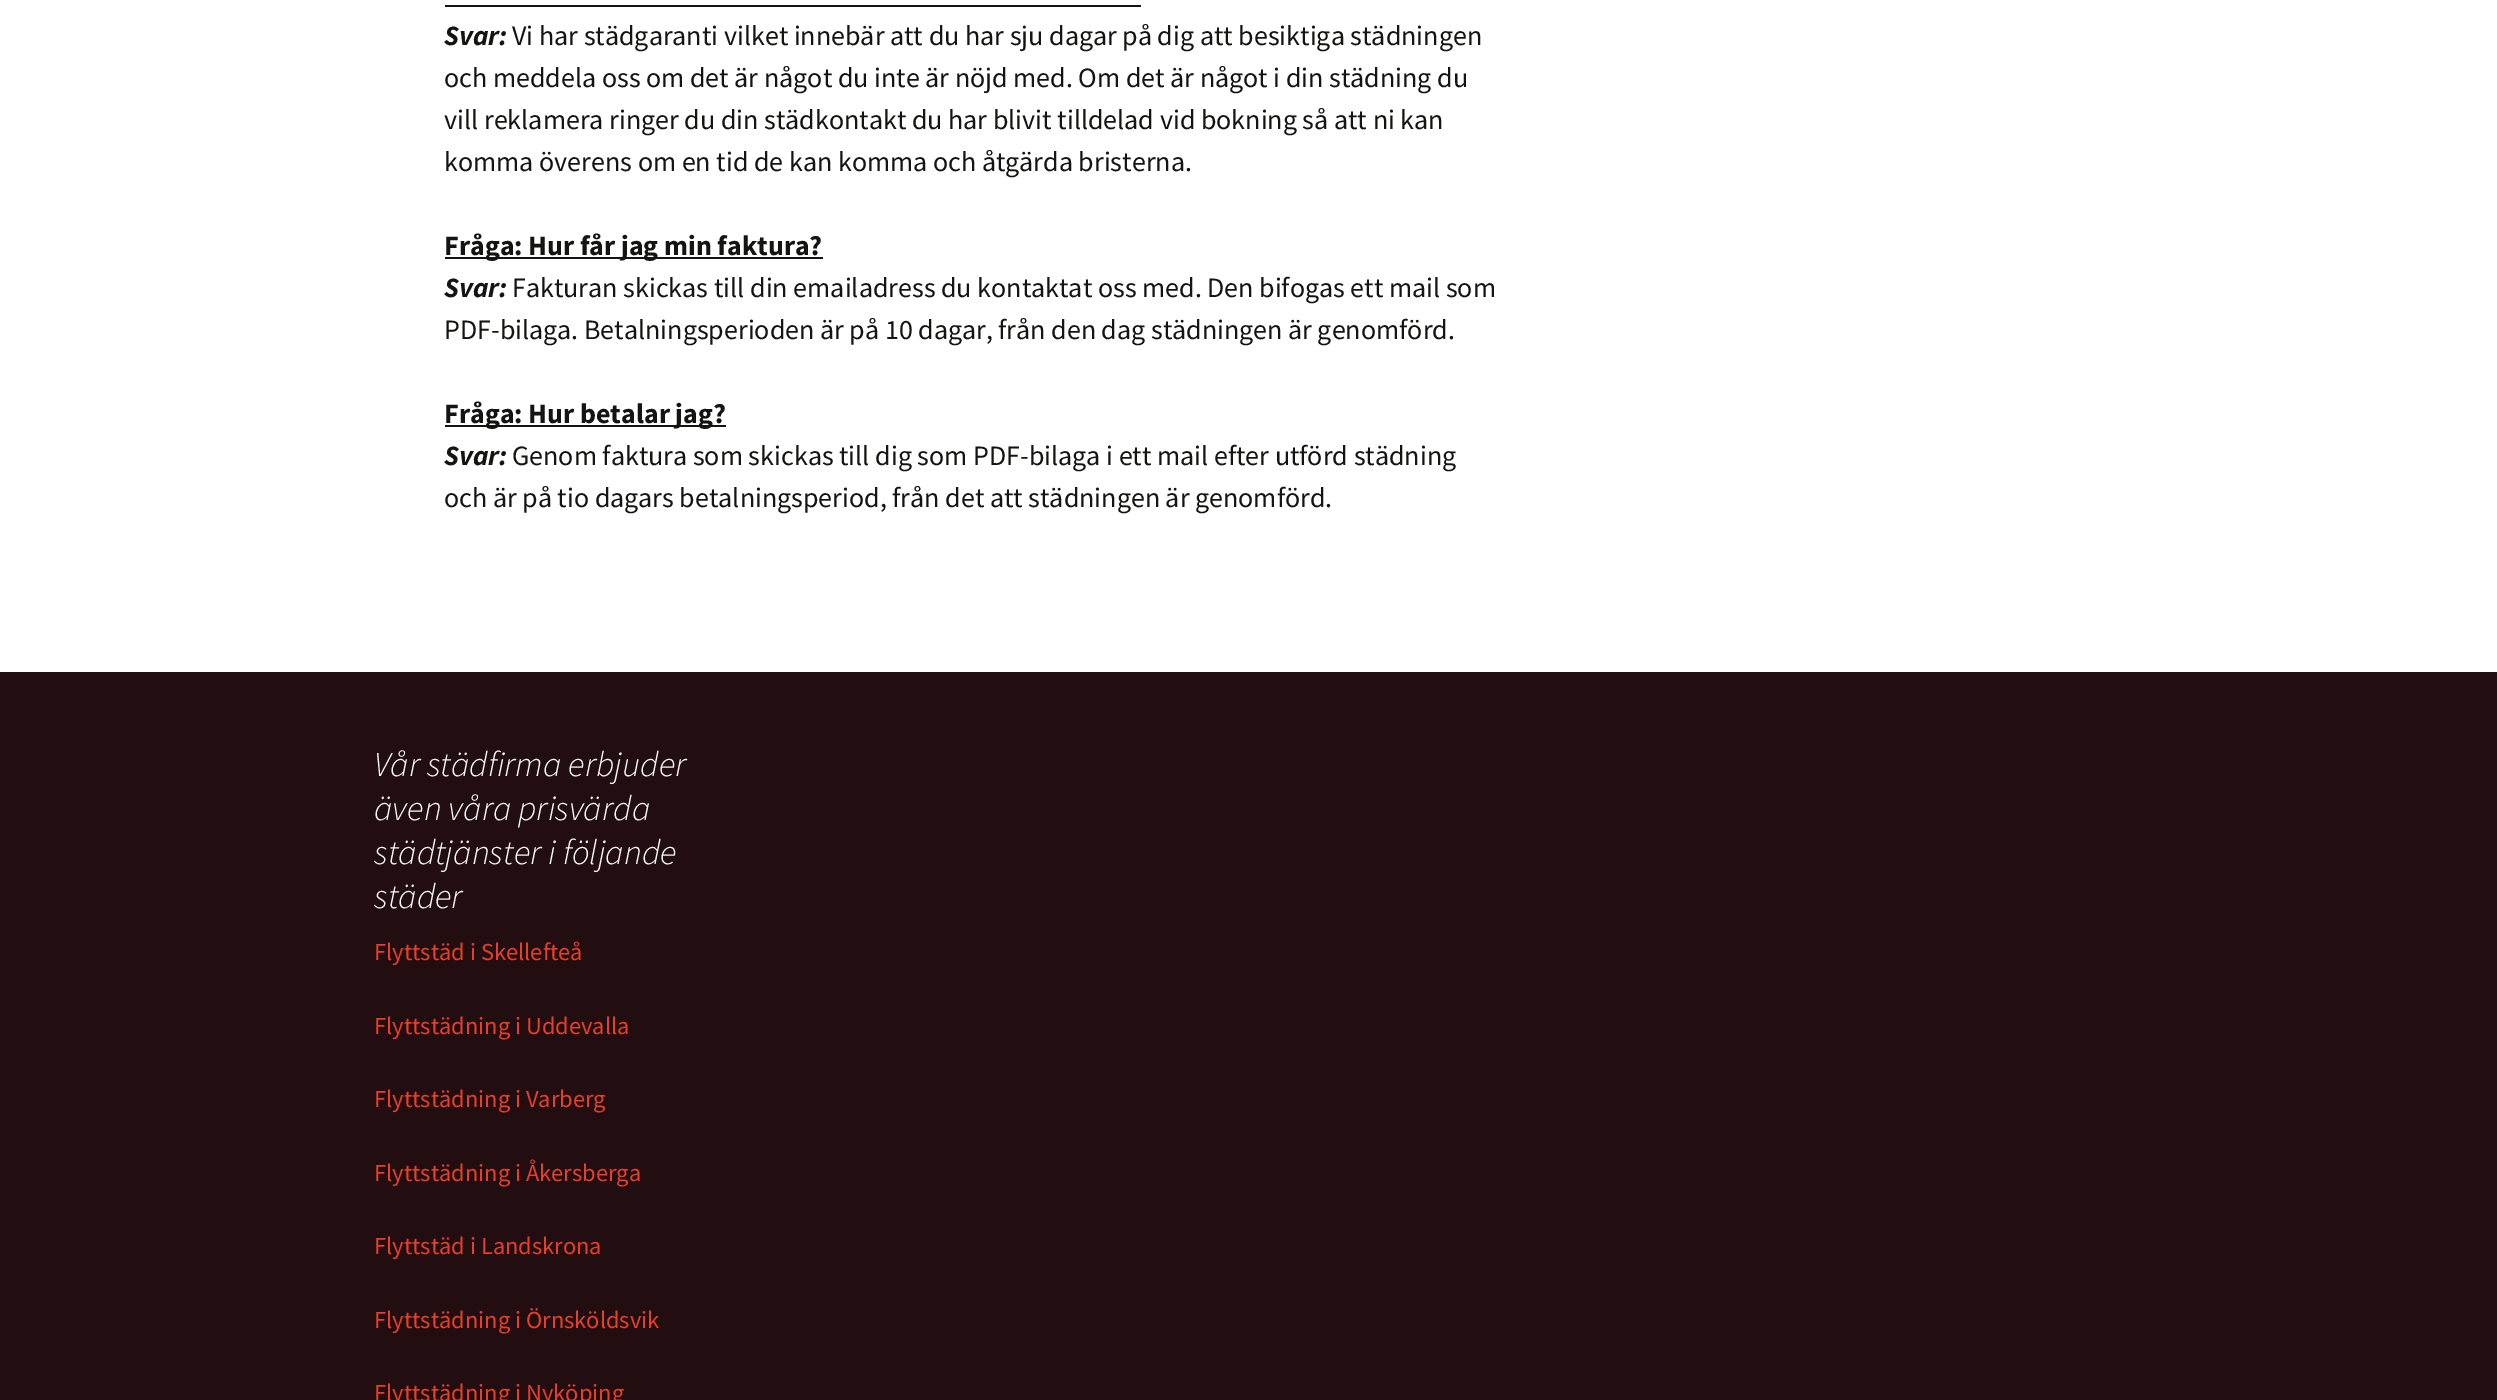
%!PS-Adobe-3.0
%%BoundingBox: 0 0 2497 1400
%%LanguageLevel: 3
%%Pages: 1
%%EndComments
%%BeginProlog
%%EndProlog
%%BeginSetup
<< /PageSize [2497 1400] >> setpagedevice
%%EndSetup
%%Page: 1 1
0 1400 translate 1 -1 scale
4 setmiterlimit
1 setgray
0 0 2497 1400 rectfill
0.078 0.078 0.071 setrgbcolor
445 5 696 2 rectfill
445 257 378 2 rectfill
445 425 281 2 rectfill
0.133 0.055 0.063 setrgbcolor
0 672 2497 728 rectfill
/SourceSansPro-BoldItalic [28 0 0 -28 0 0] selectfont
0.078 0.078 0.071 setrgbcolor
444 45 moveto (Svar:) show
/SourceSansPro-Regular [28 0 0 -28 0 0] selectfont
512 45 moveto (Vi har städgaranti vilket innebär att du har sju dagar på dig att besiktiga städningen) show
444 87 moveto (och meddela oss om det är något du inte är nöjd med. Om det är något i din städning du) show
444 129 moveto (vill reklamera ringer du din städkontakt du har blivit tilldelad vid bokning så att ni kan) show
444 171 moveto (komma överens om en tid de kan komma och åtgärda bristerna.) show
/SourceSansPro-Bold [28 0 0 -28 0 0] selectfont
444 255 moveto (Fråga: Hur får jag min faktura?) show
/SourceSansPro-BoldItalic [28 0 0 -28 0 0] selectfont
444 297 moveto (Svar:) show
/SourceSansPro-Regular [28 0 0 -28 0 0] selectfont
512 297 moveto (Fakturan skickas till din emailadress du kontaktat oss med. Den bifogas ett mail som) show
444 339 moveto (PDF-bilaga. Betalningsperioden är på 10 dagar, från den dag städningen är genomförd.) show
/SourceSansPro-Bold [28 0 0 -28 0 0] selectfont
444 423 moveto (Fråga: Hur betalar jag?) show
/SourceSansPro-BoldItalic [28 0 0 -28 0 0] selectfont
444 465 moveto (Svar:) show
/SourceSansPro-Regular [28 0 0 -28 0 0] selectfont
512 465 moveto (Genom faktura som skickas till dig som PDF-bilaga i ett mail efter utförd städning) show
444 507 moveto (och är på tio dagars betalningsperiod, från det att städningen är genomförd.) show
/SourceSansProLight-LightItalic [35 0 0 -35 0 0] selectfont
1 setgray
374 776 moveto (Vår städfirma erbjuder) show
374 820 moveto (även våra prisvärda) show
374 864 moveto (städtjänster i följande) show
374 908 moveto (städer) show
/SourceSansPro-Regular [24.5 0 0 -24.5 0 0] selectfont
0.902 0.251 0.165 setrgbcolor
374 960 moveto (Flyttstäd i Skellefteå) show
374 1034 moveto (Flyttstädning i Uddevalla) show
374 1107 moveto (Flyttstädning i Varberg) show
374 1181 moveto (Flyttstädning i Åkersberga) show
374 1254 moveto (Flyttstäd i Landskrona) show
374 1328 moveto (Flyttstädning i Örnsköldsvik) show
374 1401 moveto (Flyttstädning i Nyköping) show
showpage
%%EOF
